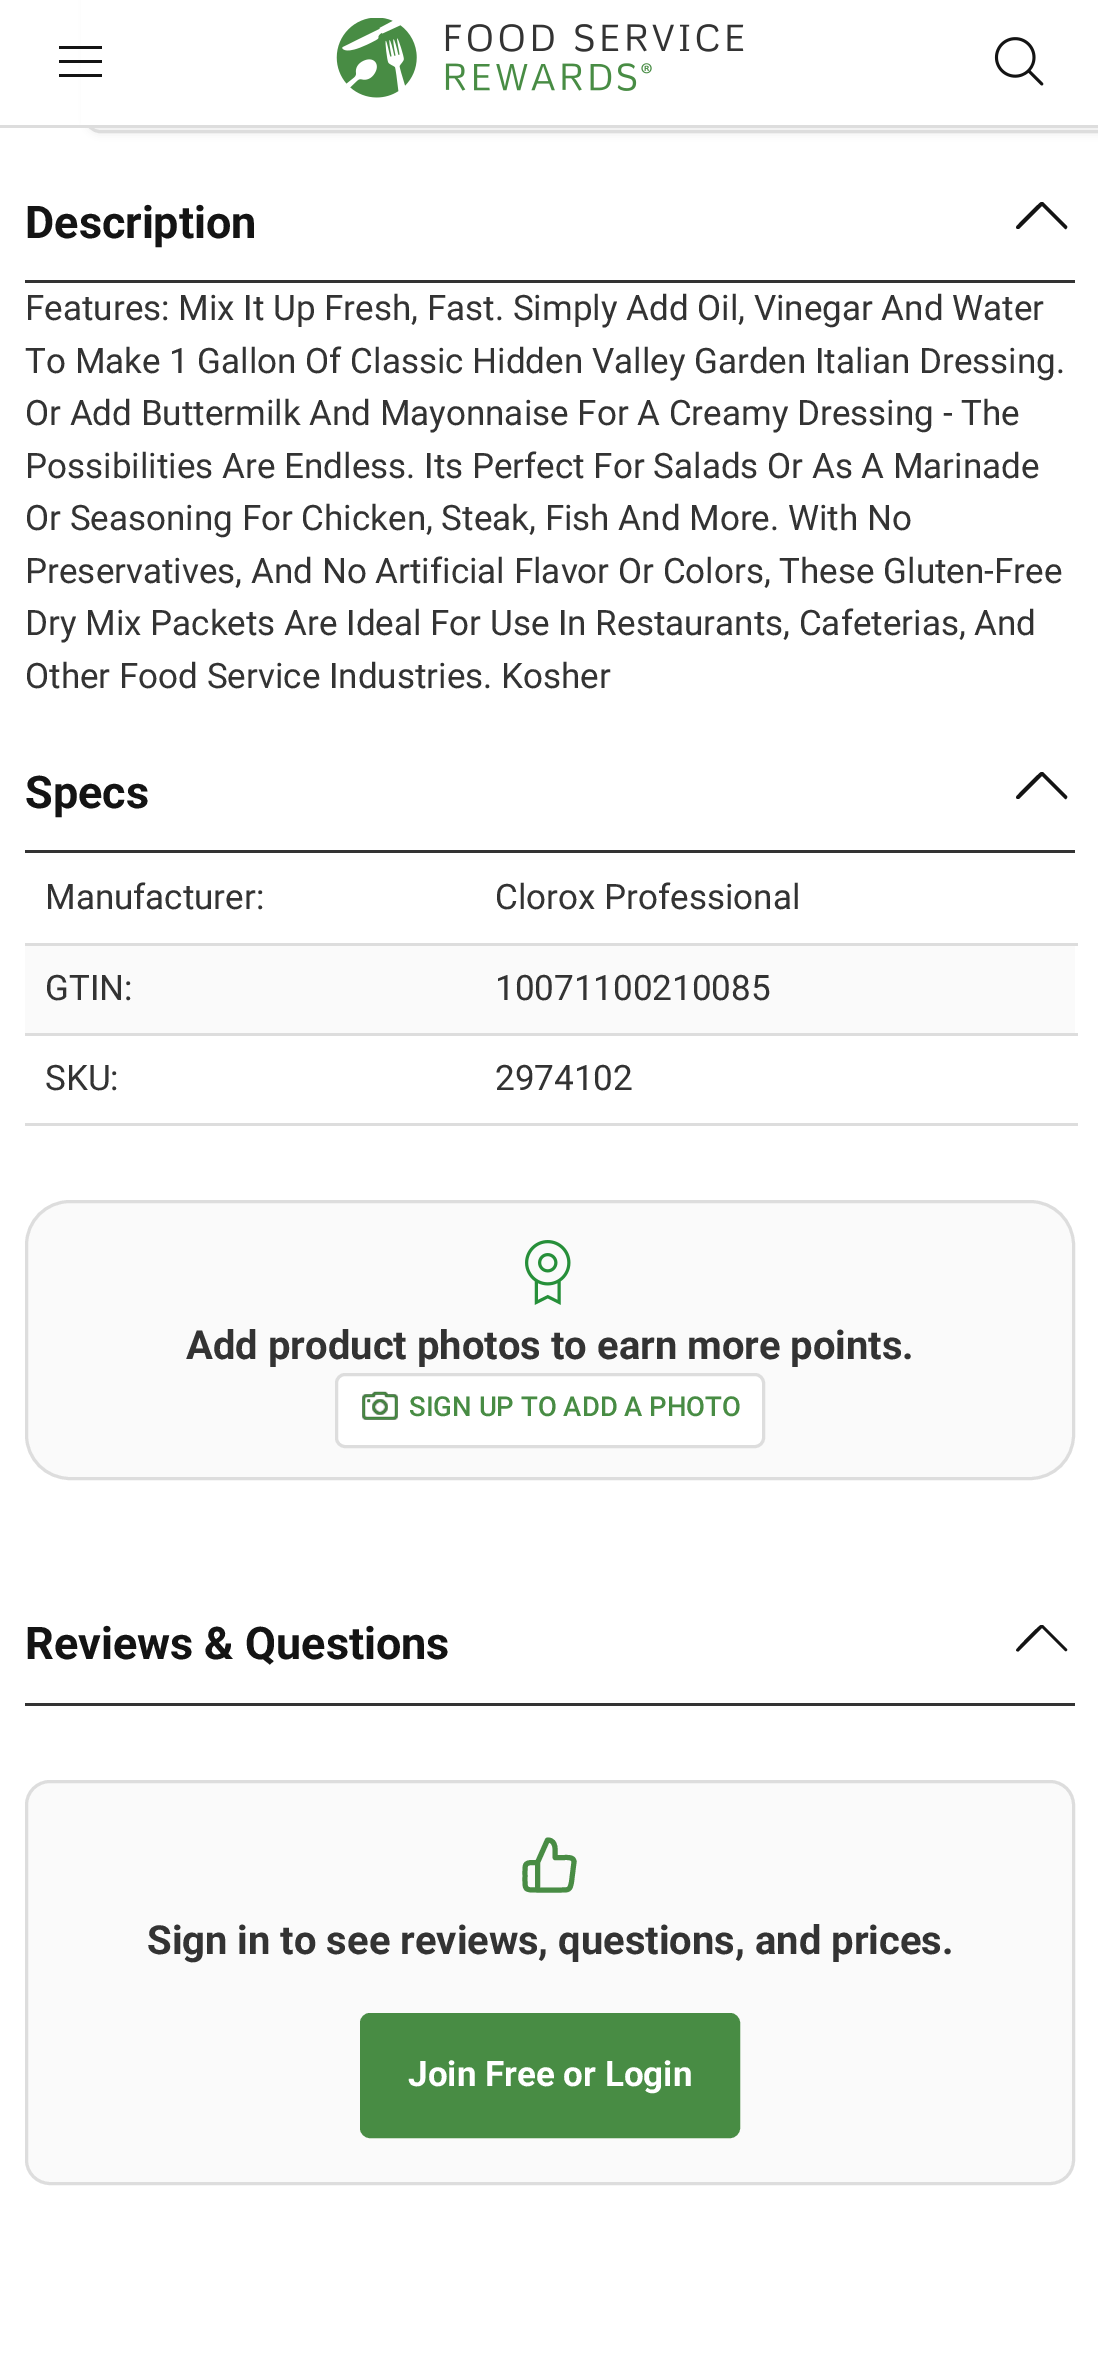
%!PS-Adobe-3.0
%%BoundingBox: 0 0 1098 2367
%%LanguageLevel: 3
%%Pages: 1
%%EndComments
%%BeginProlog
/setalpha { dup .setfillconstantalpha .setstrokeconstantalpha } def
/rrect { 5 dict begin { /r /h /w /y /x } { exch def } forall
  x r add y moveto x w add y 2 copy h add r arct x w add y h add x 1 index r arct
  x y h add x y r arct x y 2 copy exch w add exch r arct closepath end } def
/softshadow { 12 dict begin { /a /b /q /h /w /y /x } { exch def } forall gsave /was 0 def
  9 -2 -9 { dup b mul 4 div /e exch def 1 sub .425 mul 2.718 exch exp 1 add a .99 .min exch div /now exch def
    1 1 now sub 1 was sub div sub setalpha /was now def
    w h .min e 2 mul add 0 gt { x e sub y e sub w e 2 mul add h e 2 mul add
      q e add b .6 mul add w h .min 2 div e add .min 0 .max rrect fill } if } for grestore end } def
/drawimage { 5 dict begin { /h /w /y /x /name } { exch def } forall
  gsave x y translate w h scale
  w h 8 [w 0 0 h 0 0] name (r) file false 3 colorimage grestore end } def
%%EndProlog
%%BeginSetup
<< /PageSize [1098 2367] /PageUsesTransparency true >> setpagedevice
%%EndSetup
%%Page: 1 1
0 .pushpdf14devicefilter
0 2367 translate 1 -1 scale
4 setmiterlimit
1 setgray
0 0 1098 2367 rectfill
0.6 setgray
85 -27 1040 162 15 4 0.15 softshadow
0.867 setgray
3 setlinewidth
86.5 -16.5 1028 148 13.5 rrect stroke
0 125 1098 3 rectfill
1 setgray
81 0 1017 125 rectfill
0.078 setgray
newpath 59 46 moveto 102 46 lineto 102 49 lineto 59 49 lineto closepath 59 60 moveto 102 60 lineto 102 63 lineto 59 63 lineto closepath 59 74 moveto 102 74 lineto 102 77 lineto 59 77 lineto closepath fill
(images/1.raw) 336 18 408 80 drawimage
(images/2.raw) 994 37 50 49 drawimage
0.2 setgray
25 280 1050 3 rectfill
0.078 setgray
newpath 1019 229 moveto 1018 229 1016 229 1016 227 curveto 1016 226 1039 203 1041 202 curveto 1043 202 lineto 1067 226 lineto 1068 227 1066 230 1065 229 curveto 1042 206 lineto closepath fill
0.2 setgray
25 850 1050 3 rectfill
0.078 setgray
newpath 1019 799 moveto 1018 799 1016 799 1016 797 curveto 1016 796 1039 773 1041 772 curveto 1043 772 lineto 1067 796 lineto 1068 797 1066 800 1065 799 curveto 1042 776 lineto closepath fill
0.867 setgray
25 943 1053 3 rectfill
0.98 setgray
25 946 1050 87 rectfill
0.867 setgray
25 1033 1053 3 rectfill
25 1123 1053 3 rectfill
0.98 setgray
26.5 1201.5 1047 277 43.5 rrect gsave fill grestore
0.867 setgray
stroke
(images/3.raw) 525 1240 46 65 drawimage
1 setgray
336.5 1374.5 427 72 8.5 rrect gsave fill grestore
0.867 setgray
stroke
(images/4.raw) 362 1391 36 29 drawimage
0.2 setgray
25 1703 1050 3 rectfill
0.078 setgray
newpath 1019 1651 moveto 1018 1652 1016 1651 1016 1650 curveto 1016 1649 1039 1625 1041 1625 curveto 1043 1625 lineto 1067 1649 lineto 1068 1650 1066 1652 1065 1651 curveto 1042 1628 lineto closepath fill
0.98 setgray
26.5 1781.5 1047 402 23.5 rrect gsave fill grestore
0.867 setgray
stroke
0.282 0.549 0.267 setrgbcolor
5 setlinewidth
1 setlinecap
1 setlinejoin
newpath 537.5 1890 moveto 524 1890 525 1890 525 1876 curveto 525 1862.5 524 1862.5 537.5 1862.5 curveto 555 1857.5 moveto 555 1851.5 557 1840 547.5 1840 curveto 537.5 1862.5 lineto 537.5 1890 lineto 561 1890 lineto 569 1890 570 1890 571.5 1882 curveto 574 1862 lineto 574 1857 568 1857.5 564.5 1857.5 curveto closepath stroke
361.5 2014.5 377 122 8.5 rrect gsave fill grestore
3 setlinewidth
0 setlinecap
0 setlinejoin
stroke
/Roboto-Bold [45 0 0 -45 0 0] selectfont
0.078 setgray
25 238 moveto (Description) show
/Roboto-Regular [35 0 0 -35 0 0] selectfont
0.2 setgray
25 320 moveto (Features: Mix It Up Fresh, Fast. Simply Add Oil, Vinegar And Water) show
25 373 moveto (To Make 1 Gallon Of Classic Hidden Valley Garden Italian Dressing.) show
25 425 moveto (Or Add Buttermilk And Mayonnaise For A Creamy Dressing - The) show
25 478 moveto (Possibilities Are Endless. Its Perfect For Salads Or As A Marinade) show
25 530 moveto (Or Seasoning For Chicken, Steak, Fish And More. With No) show
25 583 moveto (Preservatives, And No Artificial Flavor Or Colors, These Gluten-Free) show
25 635 moveto (Dry Mix Packets Are Ideal For Use In Restaurants, Cafeterias, And) show
25 688 moveto (Other Food Service Industries. Kosher) show
/Roboto-Bold [45 0 0 -45 0 0] selectfont
0.078 setgray
25 808 moveto (Specs) show
/Roboto-Regular [35 0 0 -35 0 0] selectfont
0.2 setgray
45 909 moveto (Manufacturer:) show
495 909 moveto (Clorox Professional) show
45 1000 moveto (GTIN:) show
495 1000 moveto (10071100210085) show
45 1090 moveto (SKU:) show
495 1090 moveto (2974102) show
/Roboto-Bold [40 0 0 -40 0 0] selectfont
186 1359 moveto (Add product photos to earn more points) show
/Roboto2-Bold [40 0 0 -40 0 0] selectfont
902 1359 moveto (.) show
/Roboto-Medium [27.5 0 0 -27.5 0 0] selectfont
0.282 0.549 0.267 setrgbcolor
409 1416 moveto (SIGN UP TO ADD A PHOTO) show
/Roboto-Bold [45 0 0 -45 0 0] selectfont
0.078 setgray
25 1659 moveto (Reviews) show
/Roboto2-Bold [45 0 0 -45 0 0] selectfont
204 1659 moveto (&) show
/Roboto-Bold [45 0 0 -45 0 0] selectfont
245 1659 moveto (Questions) show
/Roboto-Bold [40 0 0 -40 0 0] selectfont
0.2 setgray
147 1954 moveto (Sign in to see reviews) show
/Roboto2-Bold [40 0 0 -40 0 0] selectfont
538 1954 moveto (,) show
/Roboto-Bold [40 0 0 -40 0 0] selectfont
558 1954 moveto (questions) show
/Roboto2-Bold [40 0 0 -40 0 0] selectfont
735 1954 moveto (,) show
/Roboto-Bold [40 0 0 -40 0 0] selectfont
755 1954 moveto (and prices) show
/Roboto2-Bold [40 0 0 -40 0 0] selectfont
942 1954 moveto (.) show
/Roboto-Bold [35 0 0 -35 0 0] selectfont
1 setgray
408 2086 moveto (Join Free or Login) show
.poppdf14devicefilter showpage
%%EOF
